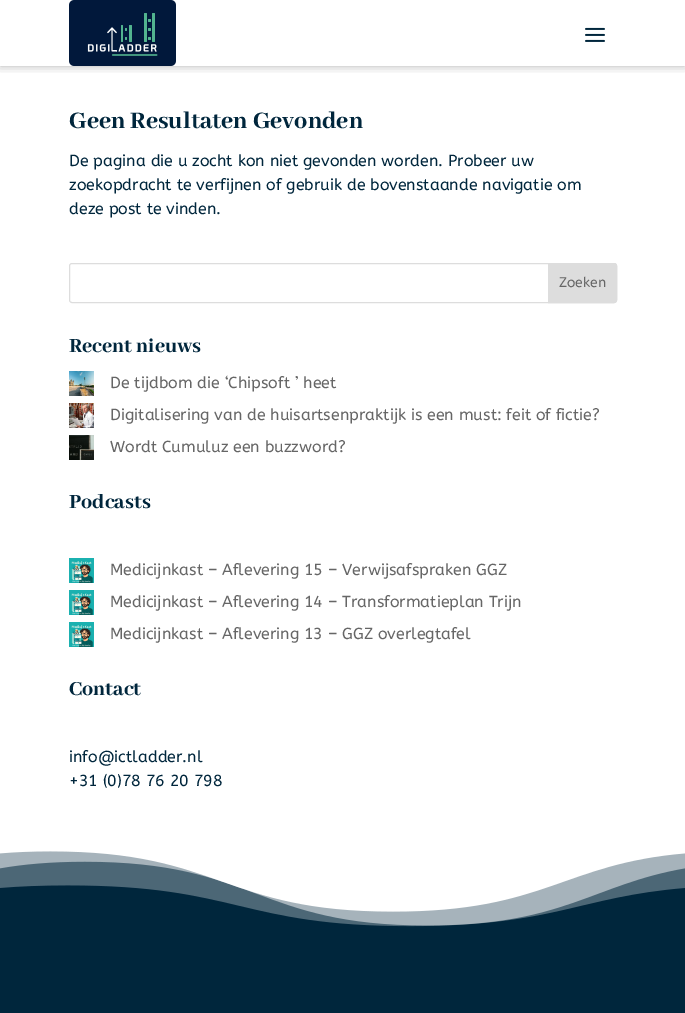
%!PS-Adobe-3.0
%%BoundingBox: 0 0 685 1013
%%LanguageLevel: 3
%%Pages: 1
%%EndComments
%%BeginProlog
/setalpha { dup .setfillconstantalpha .setstrokeconstantalpha } def
/rrect { 5 dict begin { /r /h /w /y /x } { exch def } forall
  x r add y moveto x w add y 2 copy h add r arct x w add y h add x 1 index r arct
  x y h add x y r arct x y 2 copy exch w add exch r arct closepath end } def
/softshadow { 12 dict begin { /a /b /q /h /w /y /x } { exch def } forall gsave /was 0 def
  9 -2 -9 { dup b mul 4 div /e exch def 1 sub .425 mul 2.718 exch exp 1 add a .99 .min exch div /now exch def
    1 1 now sub 1 was sub div sub setalpha /was now def
    w h .min e 2 mul add 0 gt { x e sub y e sub w e 2 mul add h e 2 mul add
      q e add b .6 mul add w h .min 2 div e add .min 0 .max rrect fill } if } for grestore end } def
/drawimage { 5 dict begin { /h /w /y /x /name } { exch def } forall
  gsave x y translate w h scale
  w h 8 [w 0 0 h 0 0] name (r) file false 3 colorimage grestore end } def
%%EndProlog
%%BeginSetup
<< /PageSize [685 1013] /PageUsesTransparency true >> setpagedevice
%%EndSetup
%%Page: 1 1
0 .pushpdf14devicefilter
0 1013 translate 1 -1 scale
4 setmiterlimit
1 setgray
0 0 685 1013 rectfill
gsave
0 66 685 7 rectclip
0 setgray
0 0 685 66 0 5 0.3 softshadow
grestore
(images/1.raw) 69 0 107 66 drawimage
(images/2.raw) 585 27 20 15 drawimage
0.867 setgray
69.5 263.5 547 39 2.5 rrect stroke
newpath 548.5 263.5 moveto 614 263.5 lineto 615.5 263.5 616.5 264.5 616.5 266 curveto 616.5 300 lineto 616.5 301.5 615.5 302.5 614 302.5 curveto 548.5 302.5 lineto closepath gsave fill grestore
stroke
(images/3.raw) 69 371 25 25 drawimage
(images/4.raw) 69 403 25 25 drawimage
(images/5.raw) 69 435 25 25 drawimage
(images/6.raw) 69 558 25 25 drawimage
(images/6.raw) 69 590 25 25 drawimage
(images/6.raw) 69 622 25 25 drawimage
0 0.149 0.235 setrgbcolor
0 851 685 162 rectfill
(images/7.raw) 0 851 685 76 drawimage
/AbhayaLibreExtraBold-ExtraBold [26 0 0 -26 0 0] selectfont
69 128 moveto (Geen Resultaten Gevonden) show
/ABeeZee-Regular [16 0 0 -16 0 0] selectfont
69 166 moveto (De pagina die u zocht kon niet gevonden worden. Probeer uw) show
69 190 moveto (zoekopdracht te verfijnen of gebruik de bovenstaande navigatie om) show
69 214 moveto (deze post te vinden.) show
/ABeeZee-Regular [14 0 0 -14 0 0] selectfont
0.4 setgray
559 287 moveto (Zoeken) show
/AbhayaLibreExtraBold-ExtraBold [22 0 0 -22 0 0] selectfont
0 0.149 0.235 setrgbcolor
69 352 moveto (Recent nieuws) show
/ABeeZee-Regular [16 0 0 -16 0 0] selectfont
0.4 setgray
110 388 moveto (De tijdbom die ‘Chipsoft ’ heet) show
110 420 moveto (Digitalisering van de huisartsenpraktijk is een must: feit of fictie?) show
110 452 moveto (Wordt Cumuluz een buzzword?) show
/AbhayaLibreExtraBold-ExtraBold [22 0 0 -22 0 0] selectfont
0 0.149 0.235 setrgbcolor
69 508 moveto (Podcasts) show
/ABeeZee-Regular [16 0 0 -16 0 0] selectfont
0.4 setgray
110 575 moveto (Medicijnkast – Aflevering 15 – Verwijsafspraken GGZ) show
110 607 moveto (Medicijnkast – Aflevering 14 – Transformatieplan Trijn) show
110 639 moveto (Medicijnkast – Aflevering 13 – GGZ overlegtafel) show
/AbhayaLibreExtraBold-ExtraBold [22 0 0 -22 0 0] selectfont
0 0.149 0.235 setrgbcolor
69 695 moveto (Contact) show
/ABeeZee-Regular [16 0 0 -16 0 0] selectfont
69 762 moveto (info@ictladder.nl) show
69 786 moveto (+31 \(0\)78 76 20 798) show
.poppdf14devicefilter showpage
%%EOF
